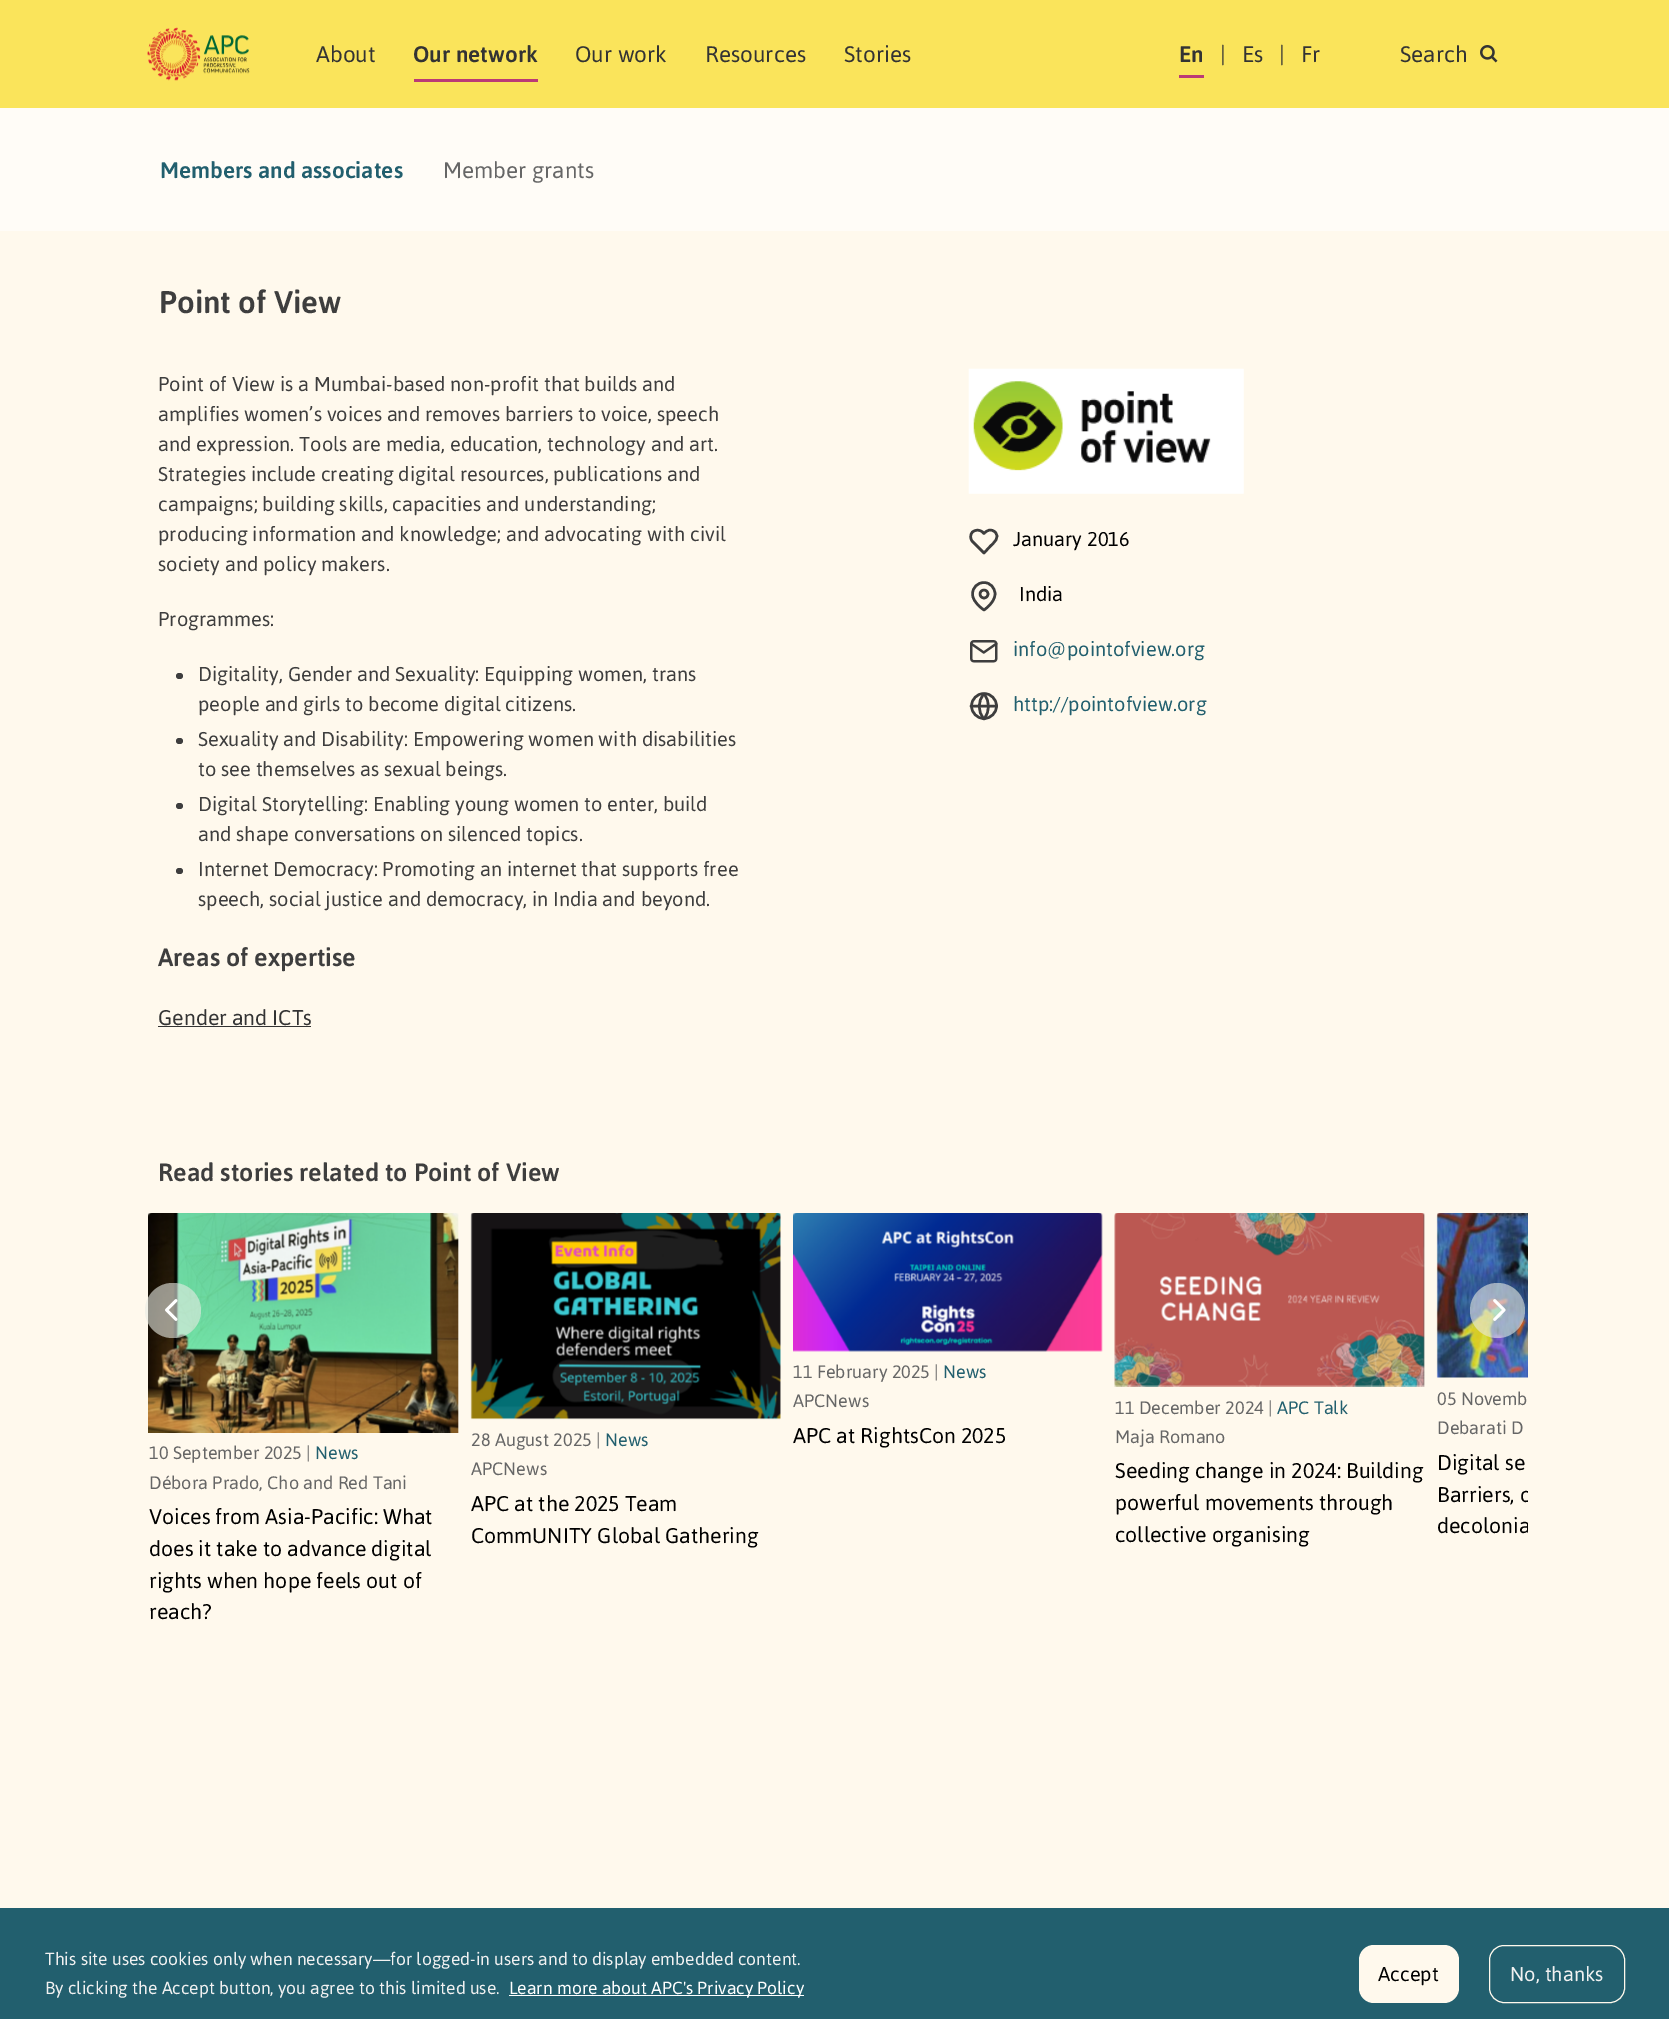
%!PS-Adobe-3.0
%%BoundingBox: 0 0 1669 2019
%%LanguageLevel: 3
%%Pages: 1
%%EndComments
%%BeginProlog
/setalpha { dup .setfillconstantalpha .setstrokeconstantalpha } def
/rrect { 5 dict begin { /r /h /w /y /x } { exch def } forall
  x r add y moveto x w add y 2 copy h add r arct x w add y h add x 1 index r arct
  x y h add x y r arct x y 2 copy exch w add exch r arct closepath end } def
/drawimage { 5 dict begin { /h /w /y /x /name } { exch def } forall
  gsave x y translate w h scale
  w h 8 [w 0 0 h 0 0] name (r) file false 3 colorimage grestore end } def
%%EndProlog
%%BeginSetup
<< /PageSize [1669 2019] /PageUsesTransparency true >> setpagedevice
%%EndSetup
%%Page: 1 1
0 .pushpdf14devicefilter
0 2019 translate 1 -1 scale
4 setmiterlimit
1 0.976 0.929 setrgbcolor
0 0 1669 2019 rectfill
0.98 0.894 0.357 setrgbcolor
0 0 1669 108 rectfill
(images/1.raw) 147 27 103 54 drawimage
0.733 0.227 0.463 setrgbcolor
414 79 124 3 rectfill
1179 75 25 3 rectfill
(images/2.raw) 1480 45 18 18 drawimage
1 0.988 0.969 setrgbcolor
0 108 1669 123 rectfill
0.243 setgray
176 673 7 6 3 rrect fill
176 738 7 6 3 rrect fill
176 803 7 6 3 rrect fill
176 868 7 6 3 rrect fill
0.2 setgray
158 1026 153 1 rectfill
(images/3.raw) 968 368 276 126 drawimage
0.243 setgray
2.5 setlinewidth
1 setlinecap
1 setlinejoin
newpath 995 532 moveto 991 528.5 987 530 984 533.5 curveto 982.5 532 lineto 979.5 529.5 975.5 529.5 972.5 532 curveto 970 534.5 970 539 972.5 541.5 curveto 984 553 lineto 990 546.5 lineto 994 542.5 1000.5 537.5 995 532 curveto closepath stroke
newpath 995 594 moveto 995 602.5 984 610 984 610 curveto 984 610 972.5 602.5 972.5 594 curveto 972.5 587.5 977.5 582.5 984 582.5 curveto 990 582.5 995 587.5 995 594 curveto closepath stroke
0 setlinecap
0 setlinejoin
newpath 984 594 4 0 360 arc closepath stroke
(images/4.raw) 970 640 28 23 drawimage
newpath 984 706 12.5 0 360 arc closepath stroke
1 setlinecap
1 setlinejoin
newpath 971 706 moveto 996 706 lineto 984 694 moveto 990 701 990 711.5 984 719 curveto 977.5 711.5 977.5 701 984 694 curveto closepath stroke
(images/7.raw) 148 1213 311 220 drawimage
0.6 setalpha
0.91 0.922 0.894 setrgbcolor
145 1283 56 55 27.5 rrect fill
1 setalpha
(images/5.raw) 165 1299 13 22 drawimage
(images/11.raw) 1436 1213 92 165 drawimage
0.6 setalpha
newpath 1497.5 1310.5 27.5 0 360 arc closepath fill
1 setalpha
(images/6.raw) 1493 1299 13 22 drawimage
(images/8.raw) 470 1213 311 207 drawimage
(images/9.raw) 793 1213 310 139 drawimage
(images/10.raw) 1114 1213 311 174 drawimage
0.133 0.373 0.431 setrgbcolor
0 1908 1669 111 rectfill
1 setgray
509 1995 295 1 rectfill
1 0.976 0.929 setrgbcolor
1359 1945 100 58 15 rrect fill
1 setlinewidth
0 setlinecap
0 setlinejoin
1489.5 1945.5 135 57 14.5 rrect stroke
/Asap-Regular [22.5 0 0 -22.5 0 0] selectfont
0.2 setgray
316 62 moveto (About) show
/Asap-Medium [22.5 0 0 -22.5 0 0] selectfont
413 62 moveto (Our network) show
/Asap-Regular [22.5 0 0 -22.5 0 0] selectfont
575 62 moveto (Our work) show
705 62 moveto (Resources) show
844 62 moveto (Stories) show
/Asap-Medium [22.5 0 0 -22.5 0 0] selectfont
1179 62 moveto (En) show
/Asap-Regular [22.5 0 0 -22.5 0 0] selectfont
1220 62 moveto (|) show
1242 62 moveto (Es) show
1279 62 moveto (|) show
1301 62 moveto (Fr) show
1400 62 moveto (Search) show
/Asap-Medium [22.5 0 0 -22.5 0 0] selectfont
0.133 0.373 0.431 setrgbcolor
160 178 moveto (Members and associates) show
/Asap-Regular [22.5 0 0 -22.5 0 0] selectfont
0.4 setgray
443 178 moveto (Member grants) show
/Asap-Medium [31.25 0 0 -31.25 0 0] selectfont
0.243 setgray
159 313 moveto (Point of View) show
/Asap-Regular [20 0 0 -20 0 0] selectfont
158 391 moveto (Point of View is a Mumbai-based non-profit that builds and) show
158 421 moveto (amplifies women’s voices and removes barriers to voice, speech) show
158 451 moveto (and expression. Tools are media, education, technology and art.) show
158 481 moveto (Strategies include creating digital resources, publications and) show
158 511 moveto (campaigns; building skills, capacities and understanding;) show
158 541 moveto (producing information and knowledge; and advocating with civil) show
158 571 moveto (society and policy makers.) show
158 626 moveto (Programmes:) show
198 681 moveto (Digitality, Gender and Sexuality: Equipping women, trans) show
198 711 moveto (people and girls to become digital citizens.) show
198 746 moveto (Sexuality and Disability: Empowering women with disabilities) show
198 776 moveto (to see themselves as sexual beings.) show
198 811 moveto (Digital Storytelling: Enabling young women to enter, build) show
198 841 moveto (and shape conversations on silenced topics.) show
198 876 moveto (Internet Democracy: Promoting an internet that supports free) show
198 906 moveto (speech, social justice and democracy, in India and beyond.) show
/Asap-Medium [25 0 0 -25 0 0] selectfont
158 966 moveto (Areas of expertise) show
/Asap-Regular [21.25 0 0 -21.25 0 0] selectfont
0.2 setgray
158 1025 moveto (Gender and ICTs) show
/Asap-Regular [20 0 0 -20 0 0] selectfont
0 setgray
1013 546 moveto (January 2016) show
1019 601 moveto (India) show
0.133 0.373 0.431 setrgbcolor
1013 656 moveto (info@pointofview.org) show
1013 711 moveto (http://pointofview.org) show
/Asap-Medium [25 0 0 -25 0 0] selectfont
0.243 setgray
158 1181 moveto (Read stories related to Point of View) show
/Asap-Regular [18 0 0 -18 0 0] selectfont
0.4 setgray
149 1459 moveto (10 September 2025 |) show
0.133 0.373 0.431 setrgbcolor
315 1459 moveto (News) show
0.4 setgray
149 1489 moveto (Débora Prado, Cho and Red Tani) show
/Asap-Regular [21.25 0 0 -21.25 0 0] selectfont
0 setgray
149 1524 moveto (Voices from Asia-Pacific: What) show
149 1556 moveto (does it take to advance digital) show
149 1588 moveto (rights when hope feels out of) show
149 1619 moveto (reach?) show
/Asap-Regular [18 0 0 -18 0 0] selectfont
0.4 setgray
471 1446 moveto (28 August 2025 |) show
0.133 0.373 0.431 setrgbcolor
605 1446 moveto (News) show
0.4 setgray
471 1475 moveto (APCNews) show
/Asap-Regular [21.25 0 0 -21.25 0 0] selectfont
0 setgray
471 1511 moveto (APC at the 2025 Team) show
471 1543 moveto (CommUNITY Global Gathering) show
/Asap-Regular [18 0 0 -18 0 0] selectfont
0.4 setgray
793 1378 moveto (11 February 2025 |) show
0.133 0.373 0.431 setrgbcolor
943 1378 moveto (News) show
0.4 setgray
793 1407 moveto (APCNews) show
/Asap-Regular [21.25 0 0 -21.25 0 0] selectfont
0 setgray
793 1443 moveto (APC at RightsCon 2025) show
/Asap-Regular [18 0 0 -18 0 0] selectfont
0.4 setgray
1115 1414 moveto (11 December 2024 |) show
0.133 0.373 0.431 setrgbcolor
1277 1414 moveto (APC Talk) show
0.4 setgray
1115 1443 moveto (Maja Romano) show
/Asap-Regular [21.25 0 0 -21.25 0 0] selectfont
0 setgray
1115 1478 moveto (Seeding change in 2024: Building) show
1115 1510 moveto (powerful movements through) show
1115 1542 moveto (collective organising) show
/Asap-Regular [18 0 0 -18 0 0] selectfont
0.4 setgray
1437 1405 moveto (05 Novemb) show
1437 1434 moveto (Debarati D) show
/Asap-Regular [21.25 0 0 -21.25 0 0] selectfont
0 setgray
1437 1470 moveto (Digital se) show
gsave
143 1213 1385 620 rectclip
1437 1502 moveto (Barriers, o) show
1437 1533 moveto (decolonia) show
grestore
/Asap-Regular [17.5 0 0 -17.5 0 0] selectfont
0.945 setgray
45 1965 moveto (This site uses cookies only when necessary—for logged-in users and to display embedded content.) show
45 1994 moveto (By clicking the Accept button, you agree to this limited use.) show
1 setgray
509 1994 moveto (Learn more about APC's Privacy Policy) show
/Asap-Regular [20 0 0 -20 0 0] selectfont
0 setgray
1378 1981 moveto (Accept) show
0.945 setgray
1510 1981 moveto (No, thanks) show
.poppdf14devicefilter showpage
%%EOF
